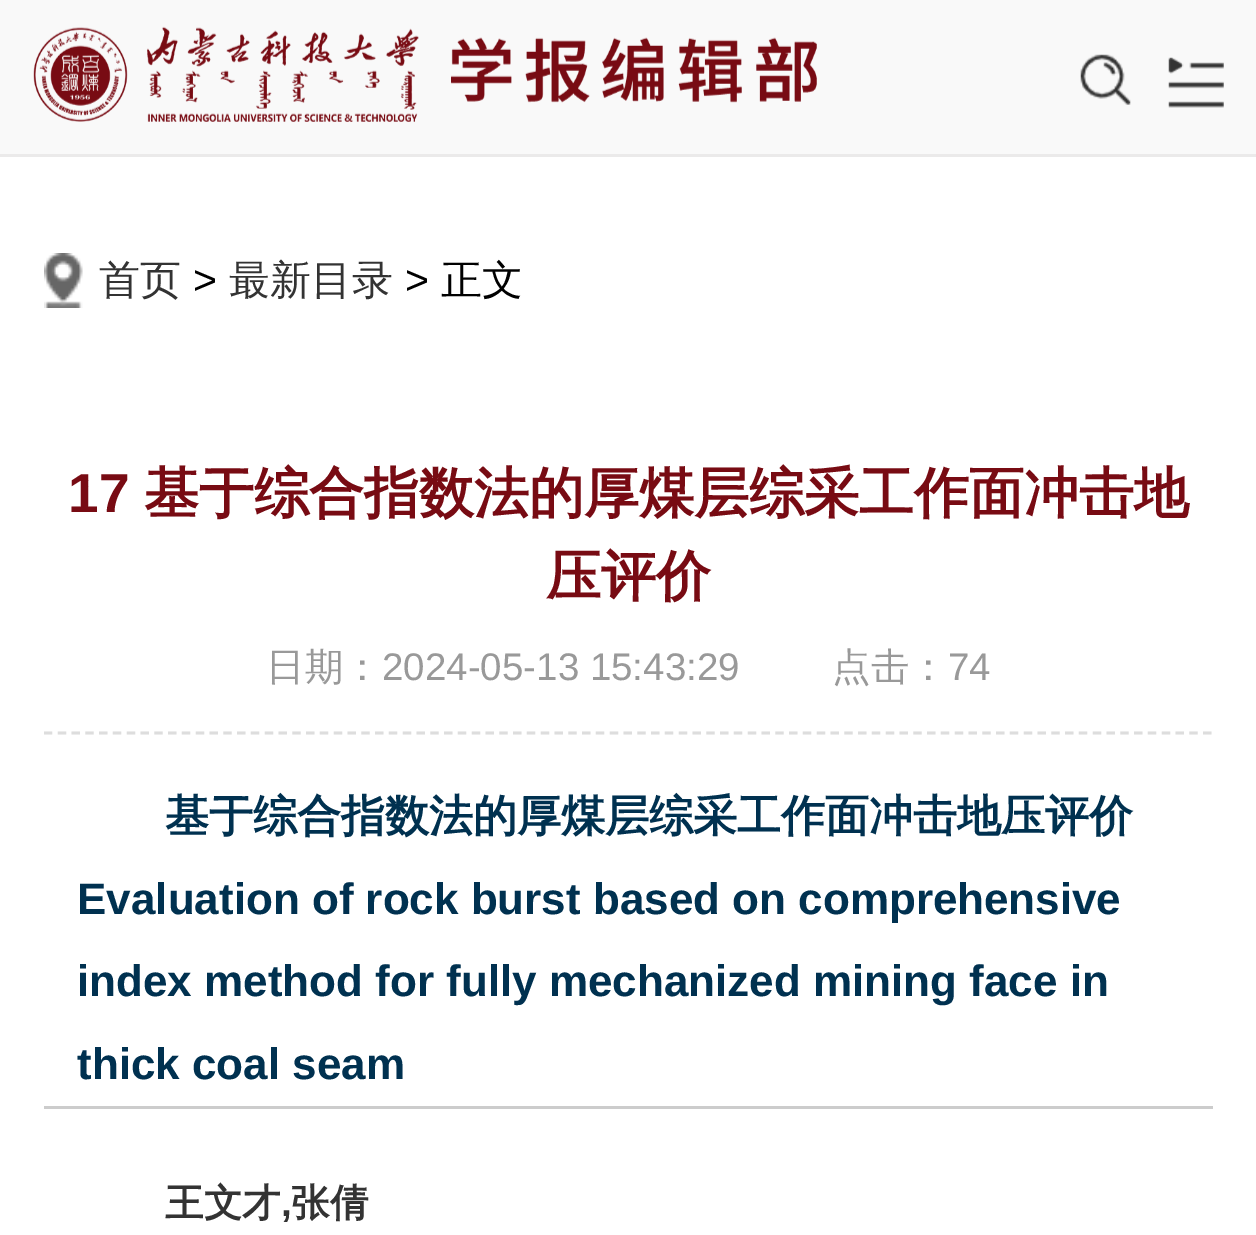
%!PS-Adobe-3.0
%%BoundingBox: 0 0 1256 1235
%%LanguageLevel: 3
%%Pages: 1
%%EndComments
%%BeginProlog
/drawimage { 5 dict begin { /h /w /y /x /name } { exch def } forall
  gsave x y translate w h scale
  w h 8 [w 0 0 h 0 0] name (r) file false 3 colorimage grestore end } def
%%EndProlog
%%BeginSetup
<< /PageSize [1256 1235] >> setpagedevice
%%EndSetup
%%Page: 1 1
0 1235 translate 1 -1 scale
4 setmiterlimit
1 setgray
0 0 1256 1235 rectfill
0.976 setgray
0 0 1256 154 rectfill
0.922 0.918 0.918 setrgbcolor
0 154 1256 3 rectfill
(images/1.raw) 33 26 784 96 drawimage
(images/2.raw) 1080 54 51 51 drawimage
(images/3.raw) 1168 57 56 51 drawimage
(images/4.raw) 44 253 39 55 drawimage
0.867 setgray
2.8 setlinewidth
[8.25 5.55] 0 setdash
newpath 44 733 moveto 1213 733 lineto stroke
0.8 setgray
44 1106 1169 3 rectfill
/WenQuanYiZenHei-Medium [41 0 0 -41 0 0] selectfont
0.2 setgray
99 294 moveto (首页) show
/LiberationSans-Regular [41 0 0 -41 0 0] selectfont
0 setgray
193 294 moveto (>) show
/WenQuanYiZenHei-Medium [41 0 0 -41 0 0] selectfont
0.2 setgray
229 294 moveto (最新目录) show
/LiberationSans-Regular [41 0 0 -41 0 0] selectfont
0 setgray
405 294 moveto (>) show
/WenQuanYiZenHei-Medium [41 0 0 -41 0 0] selectfont
441 294 moveto (正文) show
/LiberationSans-Bold [55 0 0 -55 0 0] selectfont
0.471 0.043 0.075 setrgbcolor
68 512 moveto (17) show
/WenQuanYiZenHei-Bold [55 0 0 -55 0 0] selectfont
144 512 moveto (基于综合指数法的厚煤层综采工作面冲击地) show
546 595 moveto (压评价) show
/WenQuanYiZenHei-Medium [38.5 0 0 -38.5 0 0] selectfont
0.6 setgray
266 680 moveto (日期：) show
/LiberationSans-Regular [38.5 0 0 -38.5 0 0] selectfont
382 680 moveto (2024-05-13 15:43:29) show
/WenQuanYiZenHei-Medium [38.5 0 0 -38.5 0 0] selectfont
832 680 moveto (点击：) show
/LiberationSans-Regular [38.5 0 0 -38.5 0 0] selectfont
948 680 moveto (74) show
/WenQuanYiZenHei-Bold [44 0 0 -44 0 0] selectfont
0 0.192 0.314 setrgbcolor
165 831 moveto (基于综合指数法的厚煤层综采工作面冲击地压评价) show
/LiberationSans-Bold [44 0 0 -44 0 0] selectfont
77 914 moveto (Evaluation of rock burst based on comprehensive) show
77 996 moveto (index method for fully mechanized mining face in) show
77 1079 moveto (thick coal seam) show
/WenQuanYiZenHei-Bold [38.5 0 0 -38.5 0 0] selectfont
0.2 setgray
165 1216 moveto (王文才) show
/LiberationSans-Bold [38.5 0 0 -38.5 0 0] selectfont
281 1216 moveto (,) show
/WenQuanYiZenHei-Bold [38.5 0 0 -38.5 0 0] selectfont
291 1216 moveto (张倩) show
showpage
%%EOF
